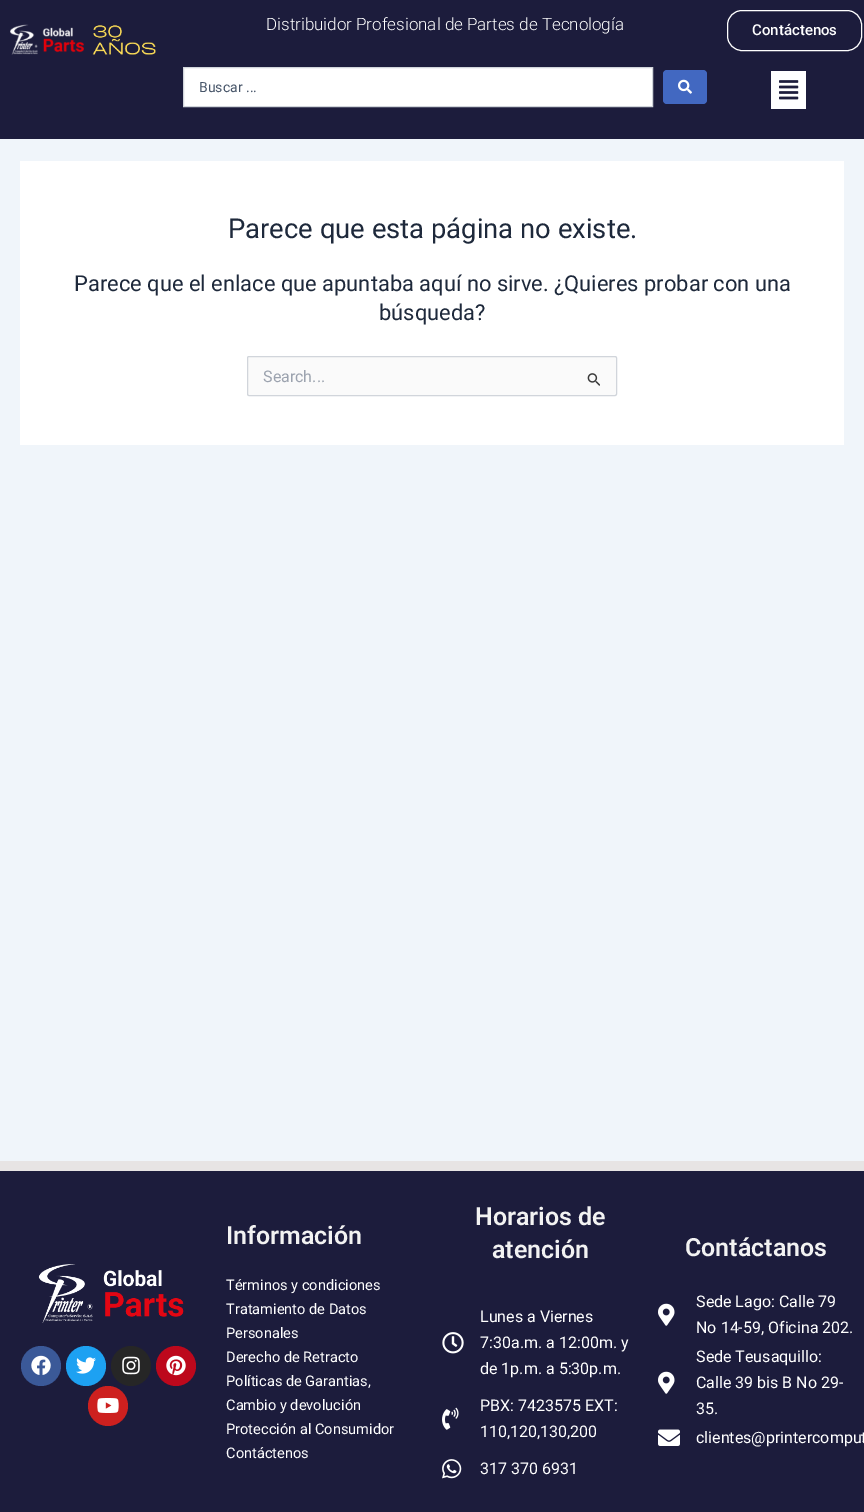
%!PS-Adobe-3.0
%%BoundingBox: 0 0 864 1512
%%LanguageLevel: 3
%%Pages: 1
%%EndComments
%%BeginProlog
/rrect { 5 dict begin { /r /h /w /y /x } { exch def } forall
  x r add y moveto x w add y 2 copy h add r arct x w add y h add x 1 index r arct
  x y h add x y r arct x y 2 copy exch w add exch r arct closepath end } def
/drawimage { 5 dict begin { /h /w /y /x /name } { exch def } forall
  gsave x y translate w h scale
  w h 8 [w 0 0 h 0 0] name (r) file false 3 colorimage grestore end } def
%%EndProlog
%%BeginSetup
<< /PageSize [864 1512] >> setpagedevice
%%EndSetup
%%Page: 1 1
0 1512 translate 1 -1 scale
4 setmiterlimit
0.941 0.961 0.98 setrgbcolor
0 0 864 1512 rectfill
0.11 0.11 0.235 setrgbcolor
0 0 864 139 rectfill
(images/1.raw) 10 24 146 31 drawimage
1 setgray
newpath 183.5 67.5 moveto 652.5 67.5 lineto 652.5 106.5 lineto 183.5 106.5 lineto closepath gsave fill grestore
0.82 0.835 0.859 setrgbcolor
stroke
0.259 0.408 0.757 setrgbcolor
663 70 44 34 4 rrect fill
(images/2.raw) 678 79 14 15 drawimage
1 setgray
727.5 10.5 134 40 14.5 rrect stroke
771 71 35 38 rectfill
(images/3.raw) 779 80 20 20 drawimage
20 161 824 284 rectfill
0.98 setgray
247.5 356.5 369 39 1.5 rrect gsave fill grestore
0.82 0.835 0.859 setrgbcolor
stroke
(images/4.raw) 587 373 13 13 drawimage
0.11 0.11 0.235 setrgbcolor
0 1171 864 341 rectfill
0.906 0.894 0.894 setrgbcolor
0 1161 864 10 rectfill
(images/5.raw) 38 1264 146 59 drawimage
0.231 0.349 0.596 setrgbcolor
newpath 41 1366 20 0 360 arc closepath fill
(images/6.raw) 31 1355 20 20 drawimage
0.114 0.631 0.949 setrgbcolor
newpath 86 1366 20 0 360 arc closepath fill
(images/7.raw) 76 1357 20 17 drawimage
0.149 setgray
newpath 131 1366 20 0 360 arc closepath fill
(images/8.raw) 122 1356 18 19 drawimage
0.741 0.031 0.11 setrgbcolor
newpath 176 1366 20 0 360 arc closepath fill
(images/9.raw) 166 1355 20 21 drawimage
0.804 0.125 0.122 setrgbcolor
newpath 108 1406 20 0 360 arc closepath fill
(images/10.raw) 97 1398 22 15 drawimage
(images/11.raw) 442 1332 22 22 drawimage
(images/12.raw) 442 1407 17 23 drawimage
(images/13.raw) 442 1459 20 20 drawimage
(images/14.raw) 658 1303 17 23 drawimage
(images/14.raw) 658 1371 17 23 drawimage
(images/15.raw) 658 1429 22 17 drawimage
/Roboto-Light [17 0 0 -17 0 0] selectfont
1 setgray
266 30 moveto (Distribuidor Profesional de Partes de Tecnología) show
/Roboto-Regular [14 0 0 -14 0 0] selectfont
0.278 0.333 0.412 setrgbcolor
199 92 moveto (Buscar ...) show
/Roboto-Medium [15 0 0 -15 0 0] selectfont
1 setgray
752 35 moveto (Contáctenos) show
/Roboto-Regular [27.4 0 0 -27.4 0 0] selectfont
0.118 0.161 0.231 setrgbcolor
228 238 moveto (Parece que esta página no existe.) show
/Roboto-Regular [21.9 0 0 -21.9 0 0] selectfont
74 291 moveto (Parece que el enlace que apuntaba aquí no sirve. ¿Quieres probar con una) show
379 320 moveto (búsqueda?) show
/Roboto-Regular [16 0 0 -16 0 0] selectfont
0.612 0.639 0.686 setrgbcolor
263 382 moveto (Search...) show
/Roboto-SemiBold [25 0 0 -25 0 0] selectfont
0.949 setgray
226 1244 moveto (Información) show
/Roboto-Regular [14.6 0 0 -14.6 0 0] selectfont
1 setgray
226 1290 moveto (Términos y condiciones) show
226 1314 moveto (Tratamiento de Datos) show
226 1338 moveto (Personales) show
226 1362 moveto (Derecho de Retracto) show
226 1386 moveto (Políticas de Garantias,) show
226 1410 moveto (Cambio y devolución) show
226 1434 moveto (Protección al Consumidor) show
226 1458 moveto (Contáctenos) show
/Roboto-SemiBold [25 0 0 -25 0 0] selectfont
0.949 setgray
475 1225 moveto (Horarios de) show
492 1258 moveto (atención) show
/Roboto-Regular [16 0 0 -16 0 0] selectfont
1 setgray
480 1322 moveto (Lunes a Viernes) show
480 1348 moveto (7:30a.m. a 12:00m. y) show
480 1374 moveto (de 1p.m. a 5:30p.m.) show
480 1411 moveto (PBX: 7423575 EXT:) show
480 1437 moveto (110,120,130,200) show
480 1474 moveto (317 370 6931) show
/Roboto-SemiBold [25 0 0 -25 0 0] selectfont
0.949 setgray
685 1256 moveto (Contáctanos) show
/Roboto-Regular [16 0 0 -16 0 0] selectfont
1 setgray
696 1307 moveto (Sede Lago: Calle 79) show
696 1333 moveto (No 14-59, Oficina 202.) show
696 1362 moveto (Sede Teusaquillo:) show
696 1388 moveto (Calle 39 bis B No 29-) show
696 1414 moveto (35.) show
696 1443 moveto (clientes@printercomput) show
showpage
%%EOF
